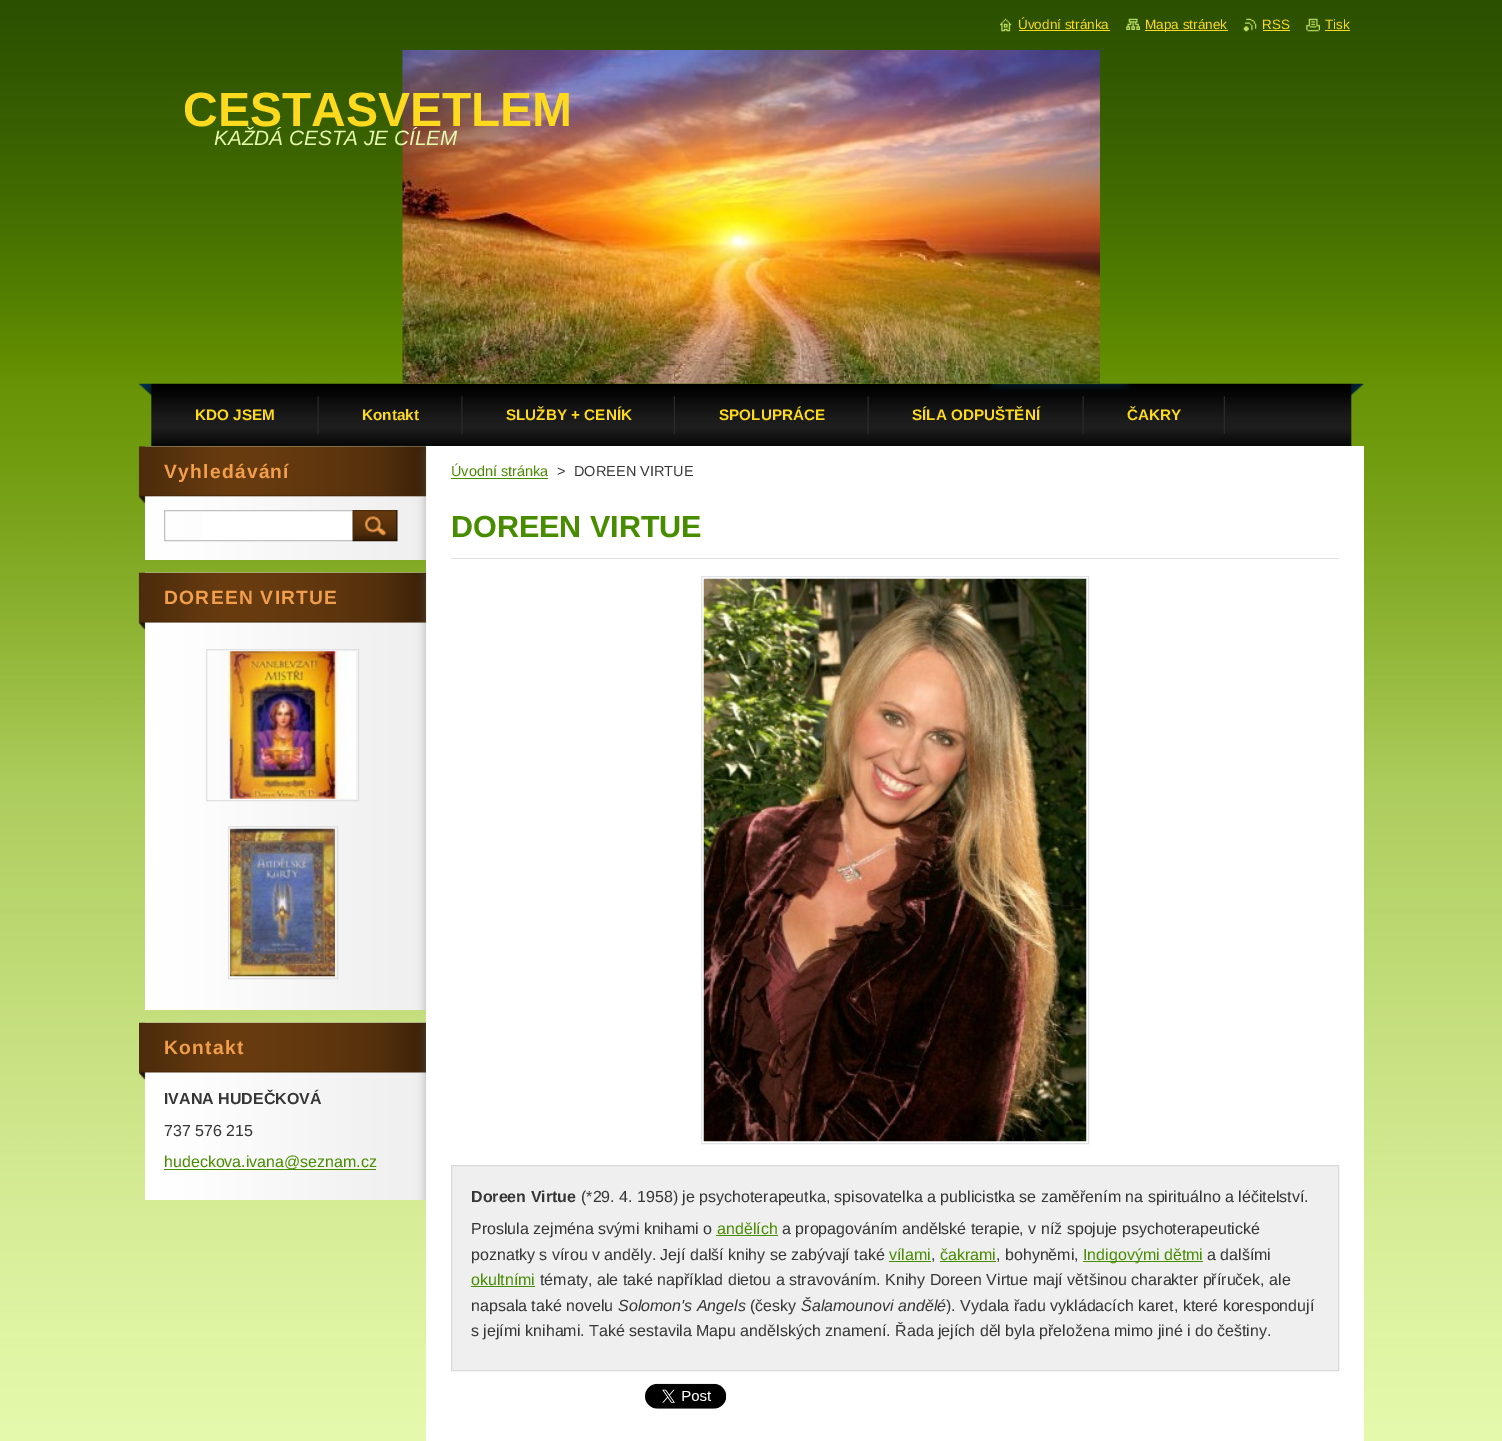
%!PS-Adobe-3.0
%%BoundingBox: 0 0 1502 1441
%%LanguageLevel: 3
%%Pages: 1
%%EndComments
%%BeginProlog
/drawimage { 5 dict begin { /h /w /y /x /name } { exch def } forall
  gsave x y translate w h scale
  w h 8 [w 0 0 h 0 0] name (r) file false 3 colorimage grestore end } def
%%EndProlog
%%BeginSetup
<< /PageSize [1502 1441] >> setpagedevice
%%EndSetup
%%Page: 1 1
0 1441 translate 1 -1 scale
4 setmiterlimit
1 setgray
0 0 1502 1441 rectfill
(images/1.raw) 0 0 1502 1441 drawimage
(images/2.raw) 1000 18 12 14 drawimage
0.992 0.855 0.118 setrgbcolor
1019 30 91 1 rectfill
(images/3.raw) 1126 18 14 12 drawimage
1145 30 83 1 rectfill
(images/4.raw) 1243 18 14 14 drawimage
1263 30 27 1 rectfill
(images/5.raw) 1306 18 14 14 drawimage
1325 30 25 1 rectfill
(images/7.raw) 138 383 1226 64 drawimage
(images/6.raw) 402 50 698 334 drawimage
(images/8.raw) 317 396 2 38 drawimage
(images/9.raw) 461 396 2 38 drawimage
(images/10.raw) 673 396 2 38 drawimage
(images/8.raw) 867 396 2 38 drawimage
(images/8.raw) 1082 396 2 38 drawimage
(images/10.raw) 1223 396 2 38 drawimage
(images/11.raw) 145 446 281 114 drawimage
1 setgray
426 446 938 995 rectfill
(images/12.raw) 138 446 289 58 drawimage
203 511 150 29 rectfill
0.757 setgray
164.5 510.5 189 30 rectstroke
(images/13.raw) 352 510 46 32 drawimage
(images/14.raw) 145 572 281 438 drawimage
(images/15.raw) 138 572 289 58 drawimage
0.882 setgray
206.5 649.5 152 151 rectstroke
(images/16.raw) 227 651 129 148 drawimage
228.5 826.5 109 152 rectstroke
(images/17.raw) 230 828 105 149 drawimage
(images/18.raw) 145 1022 281 178 drawimage
(images/19.raw) 139 1022 287 58 drawimage
0.282 0.549 0 setrgbcolor
164 1169 212 1 rectfill
451 478 97 1 rectfill
0.882 setgray
451 558 888 1 rectfill
0.878 0.886 0.902 setrgbcolor
701.5 576.5 387 567 rectstroke
(images/20.raw) 703 578 384 564 drawimage
0.937 setgray
newpath 451.5 1165.5 moveto 1338.5 1165.5 lineto 1338.5 1370.5 lineto 451.5 1370.5 lineto closepath gsave fill grestore
0.851 setgray
stroke
0.282 0.549 0 setrgbcolor
716 1235 62 1 rectfill
889 1261 42 1 rectfill
940 1261 56 1 rectfill
1083 1261 120 1 rectfill
471 1286 64 1 rectfill
(images/21.raw) 645 1383 82 26 drawimage
/LiberationSans-Regular [13.5 0 0 -13.5 0 0] selectfont
0.992 0.855 0.118 setrgbcolor
1018 29 moveto (Úvodní stránka) show
1145 29 moveto (Mapa stránek) show
1262 29 moveto (RSS) show
1325 29 moveto (Tisk) show
/LiberationSans-Bold [48 0 0 -48 0 0] selectfont
183 126 moveto (CESTASVETLEM) show
/LiberationSans-Italic [20.75 0 0 -20.75 0 0] selectfont
0.902 0.98 0.678 setrgbcolor
214 145 moveto (KAŽDÁ CESTA JE CÍLEM) show
/LiberationSans-Bold [15.25 0 0 -15.25 0 0] selectfont
0.992 0.855 0.118 setrgbcolor
195 420 moveto (KDO JSEM) show
362 420 moveto (Kontakt) show
506 420 moveto (SLUŽBY + CENÍK) show
719 420 moveto (SPOLUPRÁCE) show
912 420 moveto (SÍLA ODPUŠTĚNÍ) show
1127 420 moveto (ČAKRY) show
/LiberationSans-Bold [19.25 0 0 -19.25 0 0] selectfont
0.953 0.62 0.298 setrgbcolor
164 478 moveto 1.25 0 (Vyhledávání) ashow
164 604 moveto 1.25 0 (DOREEN VIRTUE) ashow
164 1054 moveto 1.25 0 (Kontakt) ashow
/LiberationSans-Bold [16 0 0 -16 0 0] selectfont
0.212 setgray
164 1104 moveto (IVANA HUDEČKOVÁ) show
/LiberationSans-Regular [16 0 0 -16 0 0] selectfont
164 1136 moveto (737 576 215) show
0.282 0.549 0 setrgbcolor
164 1167 moveto (hudeckova.ivana@seznam.cz) show
/LiberationSans-Regular [14.5 0 0 -14.5 0 0] selectfont
451 476 moveto (Úvodní stránka) show
0.212 setgray
557 476 moveto (>) show
574 476 moveto (DOREEN VIRTUE) show
/LiberationSans-Bold [30.5 0 0 -30.5 0 0] selectfont
0.282 0.549 0 setrgbcolor
451 537 moveto (DOREEN VIRTUE) show
/LiberationSans-Bold [16 0 0 -16 0 0] selectfont
0.212 setgray
471 1202 moveto (Doreen Virtue) show
/LiberationSans-Regular [16 0 0 -16 0 0] selectfont
581 1202 moveto (\(*29. 4. 1958\) je psychoterapeutka, spisovatelka a publicistka se zaměřením na spirituálno a léčitelství.) show
471 1234 moveto (Proslula zejména svými knihami o) show
0.282 0.549 0 setrgbcolor
717 1234 moveto (andělích) show
0.212 setgray
782 1234 moveto (a propagováním andělské terapie, v níž spojuje psychoterapeutické) show
471 1260 moveto (poznatky s vírou v anděly. Její další knihy se zabývají také) show
0.282 0.549 0 setrgbcolor
889 1260 moveto (vílami) show
0.212 setgray
931 1260 moveto (,) show
0.282 0.549 0 setrgbcolor
940 1260 moveto (čakrami) show
0.212 setgray
996 1260 moveto (, bohyněmi,) show
0.282 0.549 0 setrgbcolor
1083 1260 moveto (Indigovými dětmi) show
0.212 setgray
1207 1260 moveto (a dalšími) show
0.282 0.549 0 setrgbcolor
471 1285 moveto (okultními) show
0.212 setgray
540 1285 moveto (tématy, ale také například dietou a stravováním. Knihy Doreen Virtue mají většinou charakter příruček, ale) show
471 1311 moveto (napsala také novelu) show
/LiberationSans-Italic [16 0 0 -16 0 0] selectfont
618 1311 moveto (Solomon's Angels) show
/LiberationSans-Regular [16 0 0 -16 0 0] selectfont
750 1311 moveto (\(česky) show
/LiberationSans-Italic [16 0 0 -16 0 0] selectfont
801 1311 moveto (Šalamounovi andělé) show
/LiberationSans-Regular [16 0 0 -16 0 0] selectfont
946 1311 moveto (\). Vydala řadu vykládacích karet, které korespondují) show
471 1336 moveto (s jejími knihami. Také sestavila Mapu andělských znamení. Řada jejích děl byla přeložena mimo jiné i do češtiny.) show
showpage
%%EOF
